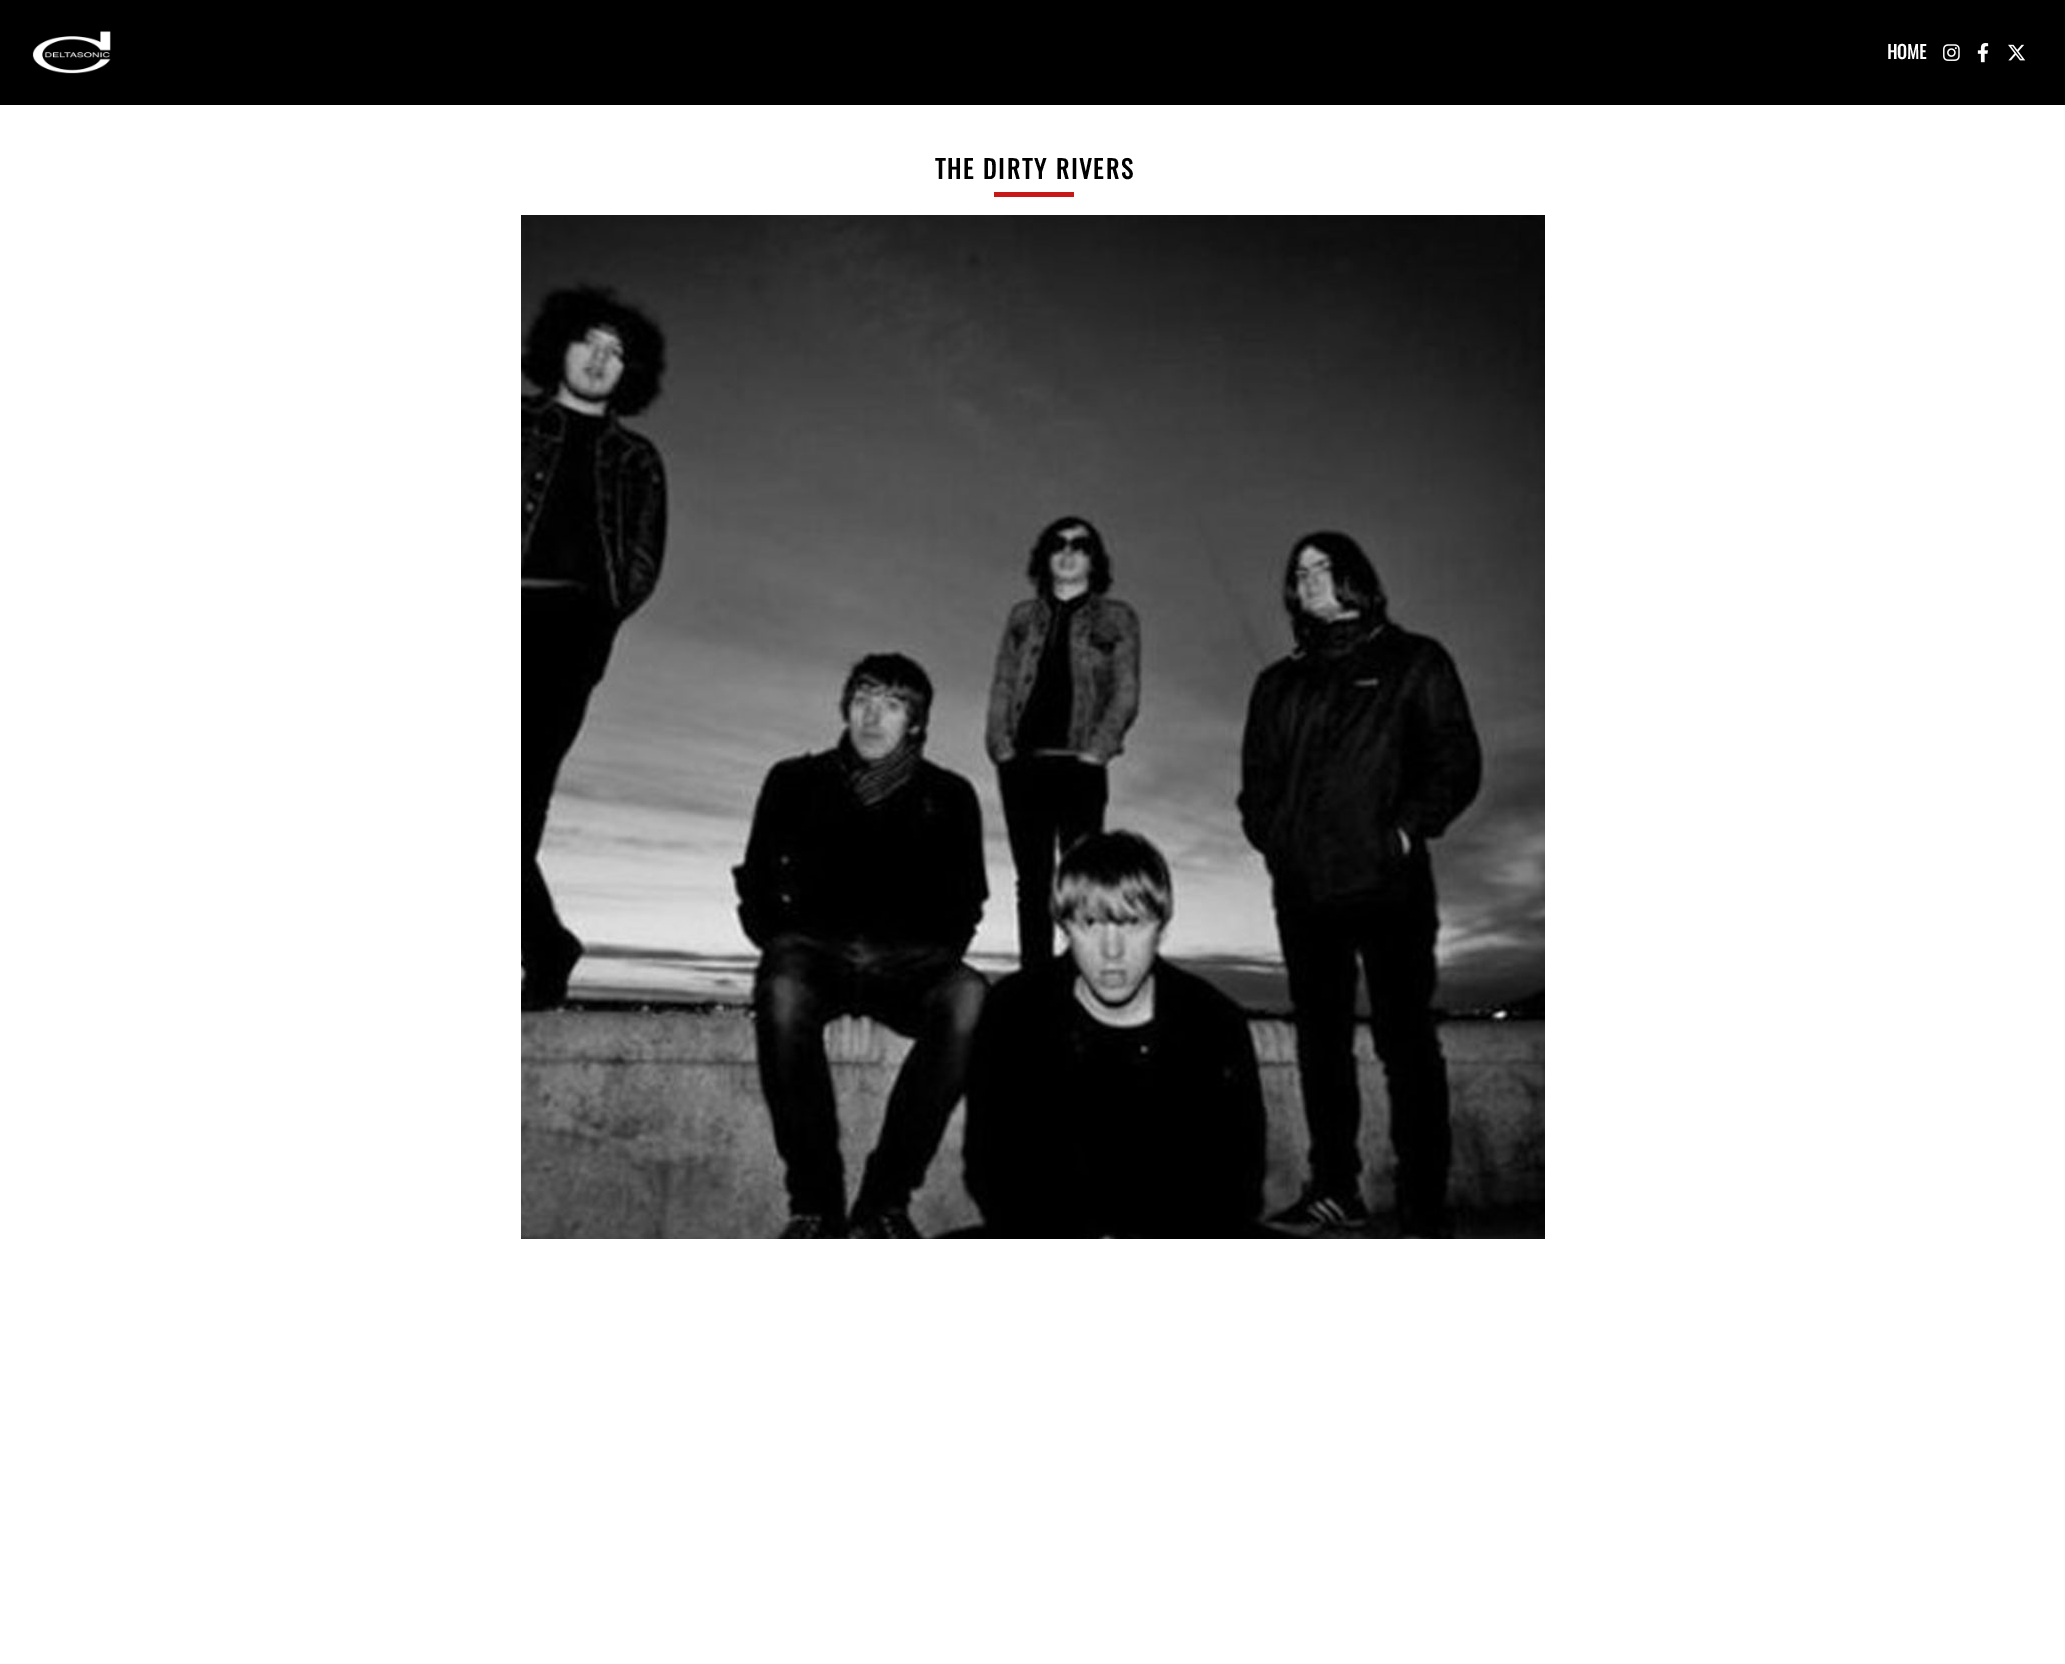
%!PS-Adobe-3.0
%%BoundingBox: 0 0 2065 1664
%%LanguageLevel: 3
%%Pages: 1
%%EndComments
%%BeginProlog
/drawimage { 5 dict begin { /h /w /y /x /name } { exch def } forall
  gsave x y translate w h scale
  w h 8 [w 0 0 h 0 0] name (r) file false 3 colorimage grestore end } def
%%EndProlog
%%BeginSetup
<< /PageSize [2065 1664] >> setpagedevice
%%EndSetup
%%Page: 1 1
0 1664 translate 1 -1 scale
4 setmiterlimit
1 setgray
0 0 2065 1664 rectfill
0 setgray
0 0 2065 105 rectfill
(images/1.raw) 32 31 79 43 drawimage
(images/2.raw) 1943 44 17 17 drawimage
(images/3.raw) 1977 43 12 20 drawimage
(images/4.raw) 2008 44 18 17 drawimage
0.784 0.094 0.094 setrgbcolor
994 192 80 5 rectfill
(images/5.raw) 521 215 1024 1024 drawimage
/Oswald-Bold [18 0 0 -18 0 0] selectfont
1 setgray
1887 59 moveto (HOME) show
/Oswald-Bold [25 0 0 -25 0 0] selectfont
0 setgray
935 179 moveto 2 0 (THE DIRTY RIVERS) ashow
showpage
%%EOF
